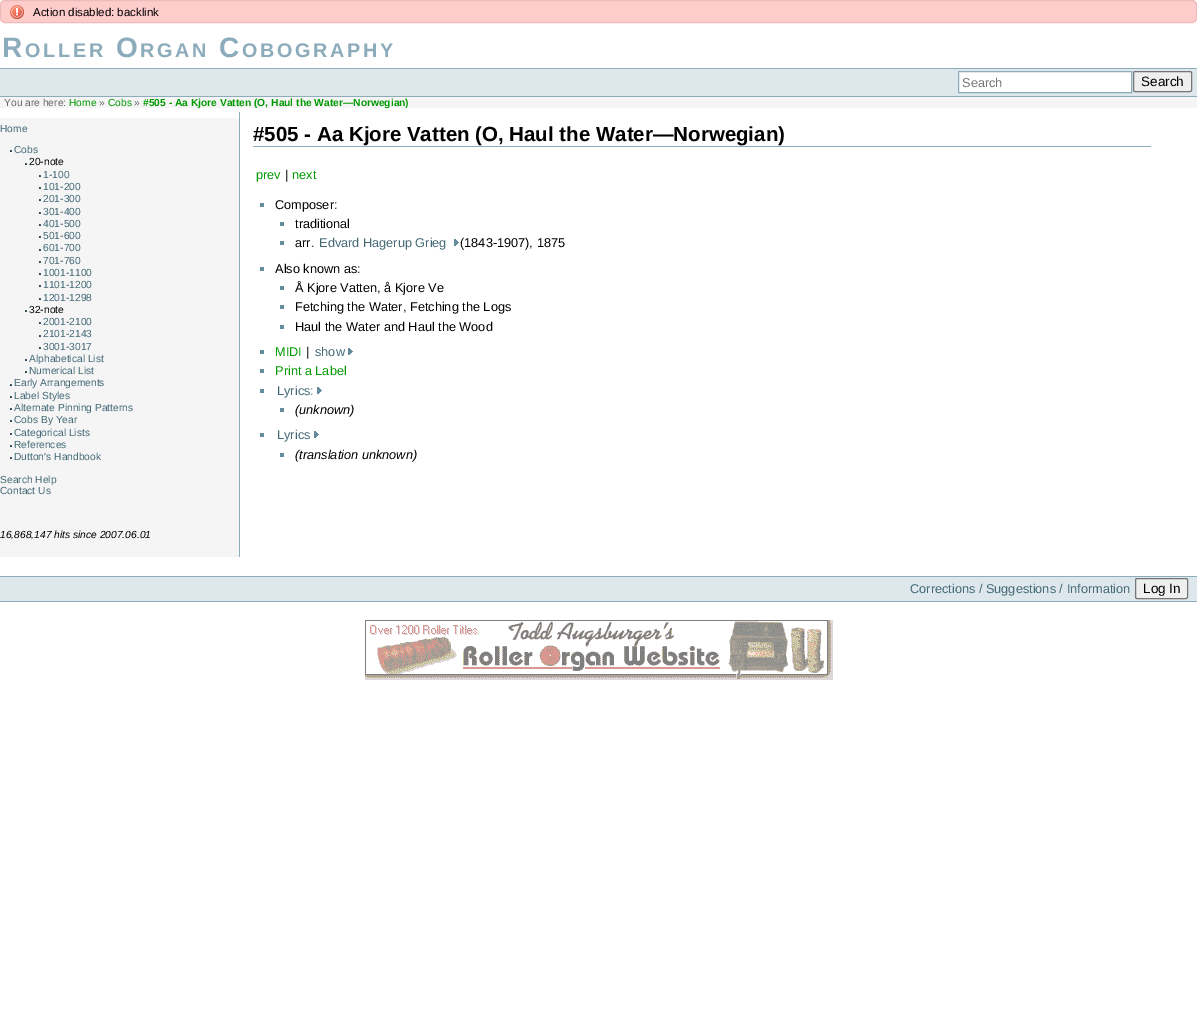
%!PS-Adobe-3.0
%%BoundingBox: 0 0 1197 1025
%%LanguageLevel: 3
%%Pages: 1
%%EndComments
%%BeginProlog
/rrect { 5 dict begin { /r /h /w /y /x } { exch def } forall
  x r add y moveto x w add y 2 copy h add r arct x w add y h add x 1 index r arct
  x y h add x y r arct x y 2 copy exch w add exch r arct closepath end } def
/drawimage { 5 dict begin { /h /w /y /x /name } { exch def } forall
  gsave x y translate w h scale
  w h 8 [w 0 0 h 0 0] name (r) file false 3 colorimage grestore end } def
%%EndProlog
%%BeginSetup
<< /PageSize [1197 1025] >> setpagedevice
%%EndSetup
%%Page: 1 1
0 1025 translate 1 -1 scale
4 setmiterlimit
1 setgray
0 0 1197 1025 rectfill
1 0.8 0.8 setrgbcolor
0 0 1197 23 5 rrect fill
(images/1.raw) 10 5 14 14 drawimage
0.933 0.733 0.733 setrgbcolor
0.5 0.5 1196 22 4.5 rrect stroke
0.871 0.906 0.925 setrgbcolor
0 69 1197 27 rectfill
0.549 0.675 0.733 setrgbcolor
0 68 1197 1 rectfill
0 96 1197 1 rectfill
1 setgray
newpath 958.5 71.5 moveto 1131.5 71.5 lineto 1131.5 92.5 lineto 958.5 92.5 lineto closepath gsave fill grestore
0.549 0.675 0.733 setrgbcolor
stroke
0.937 setgray
1133.5 71.5 58 20 1.5 rrect gsave fill grestore
0.463 setgray
stroke
0.961 setgray
0 97 1197 11 rectfill
0 118 239 439 rectfill
0.549 0.675 0.733 setrgbcolor
239 112 1 445 rectfill
(images/2.raw) 10 150 2 2 drawimage
(images/2.raw) 25 163 2 2 drawimage
(images/2.raw) 39 175 2 2 drawimage
(images/2.raw) 39 187 2 2 drawimage
(images/2.raw) 39 199 2 2 drawimage
(images/2.raw) 39 212 2 2 drawimage
(images/2.raw) 39 224 2 2 drawimage
(images/2.raw) 39 236 2 2 drawimage
(images/2.raw) 39 249 2 2 drawimage
(images/2.raw) 39 261 2 2 drawimage
(images/2.raw) 39 273 2 2 drawimage
(images/2.raw) 39 285 2 2 drawimage
(images/2.raw) 39 298 2 2 drawimage
(images/2.raw) 25 310 2 2 drawimage
(images/2.raw) 39 322 2 2 drawimage
(images/2.raw) 39 335 2 2 drawimage
(images/2.raw) 39 347 2 2 drawimage
(images/2.raw) 25 359 2 2 drawimage
(images/2.raw) 25 371 2 2 drawimage
(images/2.raw) 10 384 2 2 drawimage
(images/2.raw) 10 396 2 2 drawimage
(images/2.raw) 10 408 2 2 drawimage
(images/2.raw) 10 420 2 2 drawimage
(images/2.raw) 10 433 2 2 drawimage
(images/2.raw) 10 445 2 2 drawimage
(images/2.raw) 10 457 2 2 drawimage
253 146 898 1 rectfill
0.388 0.549 0.612 setrgbcolor
260 203 4 4 rectfill
280 222 4 4 rectfill
280 241 4 4 rectfill
(images/3.raw) 454 239 5 7 drawimage
260 267 4 4 rectfill
280 286 4 4 rectfill
280 305 4 4 rectfill
280 325 4 4 rectfill
260 350 4 4 rectfill
(images/3.raw) 348 348 5 7 drawimage
260 369 4 4 rectfill
260 389 4 4 rectfill
(images/3.raw) 317 387 5 7 drawimage
280 408 4 4 rectfill
260 433 4 4 rectfill
(images/3.raw) 314 431 5 7 drawimage
280 453 4 4 rectfill
0.871 0.906 0.925 setrgbcolor
0 577 1197 24 rectfill
0.549 0.675 0.733 setrgbcolor
0 576 1197 1 rectfill
0 601 1197 1 rectfill
0.937 setgray
1135.5 578.5 52 20 1.5 rrect gsave fill grestore
0.463 setgray
stroke
(images/4.raw) 365 620 468 60 drawimage
/LiberationSans-Regular [11.5 0 0 -11.5 0 0] selectfont
0 setgray
33 16 moveto (Action disabled: backlink) show
/LiberationSans-Bold [28 0 0 -28 0 0] selectfont
0.549 0.675 0.733 setrgbcolor
2 57 moveto 2.75 0 (R) ashow
/LiberationSans-Bold [19.75 0 0 -19.75 0 0] selectfont
25 57 moveto 2.75 0 (OLLER) ashow
/LiberationSans-Bold [28 0 0 -28 0 0] selectfont
116 57 moveto 2.75 0 (O) ashow
/LiberationSans-Bold [19.75 0 0 -19.75 0 0] selectfont
140 57 moveto 2.75 0 (RGAN) ashow
/LiberationSans-Bold [28 0 0 -28 0 0] selectfont
219 57 moveto 2.75 0 (C) ashow
/LiberationSans-Bold [19.75 0 0 -19.75 0 0] selectfont
242 57 moveto 2.75 0 (OBOGRAPHY) ashow
/LiberationSans-Regular [12.75 0 0 -12.75 0 0] selectfont
0.459 setgray
962 87 moveto (Search) show
/LiberationSans-Regular [13.5 0 0 -13.5 0 0] selectfont
0 setgray
1141 86 moveto (Search) show
/LiberationSans-Regular [10.25 0 0 -10.25 0 0] selectfont
0.4 setgray
4 106 moveto (You are here:) show
0 0.6 0 setrgbcolor
69 106 moveto (Home) show
0.4 setgray
99 106 moveto (») show
0 0.6 0 setrgbcolor
108 106 moveto (Cobs) show
0.4 setgray
134 106 moveto (») show
/LiberationSans-Bold [10.25 0 0 -10.25 0 0] selectfont
0 0.6 0 setrgbcolor
143 106 moveto (#505 - Aa Kjore Vatten \(O, Haul the Water—Norwegian\)) show
/LiberationSans-Regular [10.25 0 0 -10.25 0 0] selectfont
0.263 0.412 0.463 setrgbcolor
0 132 moveto (Home) show
14 153 moveto (Cobs) show
0 setgray
29 165 moveto (20-note) show
0.263 0.412 0.463 setrgbcolor
43 178 moveto (1-100) show
43 190 moveto (101-200) show
43 202 moveto (201-300) show
43 215 moveto (301-400) show
43 227 moveto (401-500) show
43 239 moveto (501-600) show
43 251 moveto (601-700) show
43 264 moveto (701-760) show
43 276 moveto (1001-1100) show
43 288 moveto (1101-1200) show
43 301 moveto (1201-1298) show
0 setgray
29 313 moveto (32-note) show
0.263 0.412 0.463 setrgbcolor
43 325 moveto (2001-2100) show
43 337 moveto (2101-2143) show
43 350 moveto (3001-3017) show
29 362 moveto (Alphabetical List) show
29 374 moveto (Numerical List) show
14 386 moveto (Early Arrangements) show
14 399 moveto (Label Styles) show
14 411 moveto (Alternate Pinning Patterns) show
14 423 moveto (Cobs By Year) show
14 436 moveto (Categorical Lists) show
14 448 moveto (References) show
14 460 moveto (Dutton's Handbook) show
0 483 moveto (Search Help) show
0 494 moveto (Contact Us) show
/LiberationSans-Italic [10.25 0 0 -10.25 0 0] selectfont
0 setgray
0 538 moveto (16,868,147 hits since 2007.06.01) show
/LiberationSans-Bold [20.5 0 0 -20.5 0 0] selectfont
253 141 moveto (#505 - Aa Kjore Vatten \(O, Haul the Water—Norwegian\)) show
/LiberationSans-Regular [12.75 0 0 -12.75 0 0] selectfont
0 0.6 0 setrgbcolor
256 179 moveto (prev) show
0 setgray
285 179 moveto (|) show
0 0.6 0 setrgbcolor
292 179 moveto (next) show
0 setgray
275 209 moveto (Composer:) show
295 228 moveto (traditional) show
295 247 moveto (arr.) show
0.263 0.412 0.463 setrgbcolor
319 247 moveto (Edvard Hagerup Grieg) show
0 setgray
460 247 moveto (\(1843-1907\), 1875) show
275 273 moveto (Also known as:) show
295 292 moveto (Å Kjore Vatten, å Kjore Ve) show
295 311 moveto (Fetching the Water, Fetching the Logs) show
295 331 moveto (Haul the Water and Haul the Wood) show
0 0.6 0 setrgbcolor
275 356 moveto (MIDI) show
0 setgray
306 356 moveto (|) show
0.263 0.412 0.463 setrgbcolor
315 356 moveto (show) show
0 0.6 0 setrgbcolor
275 375 moveto (Print a Label) show
0.263 0.412 0.463 setrgbcolor
277 395 moveto (Lyrics:) show
/LiberationSans-Italic [12.75 0 0 -12.75 0 0] selectfont
0 setgray
295 414 moveto (\(unknown\)) show
/LiberationSans-Regular [12.75 0 0 -12.75 0 0] selectfont
0.263 0.412 0.463 setrgbcolor
277 439 moveto (Lyrics) show
/LiberationSans-Italic [12.75 0 0 -12.75 0 0] selectfont
0 setgray
295 459 moveto (\(translation unknown\)) show
/LiberationSans-Regular [12.75 0 0 -12.75 0 0] selectfont
0.263 0.412 0.463 setrgbcolor
910 593 moveto (Corrections / Suggestions / Information) show
/LiberationSans-Regular [13.5 0 0 -13.5 0 0] selectfont
0 setgray
1143 593 moveto (Log In) show
showpage
%%EOF
